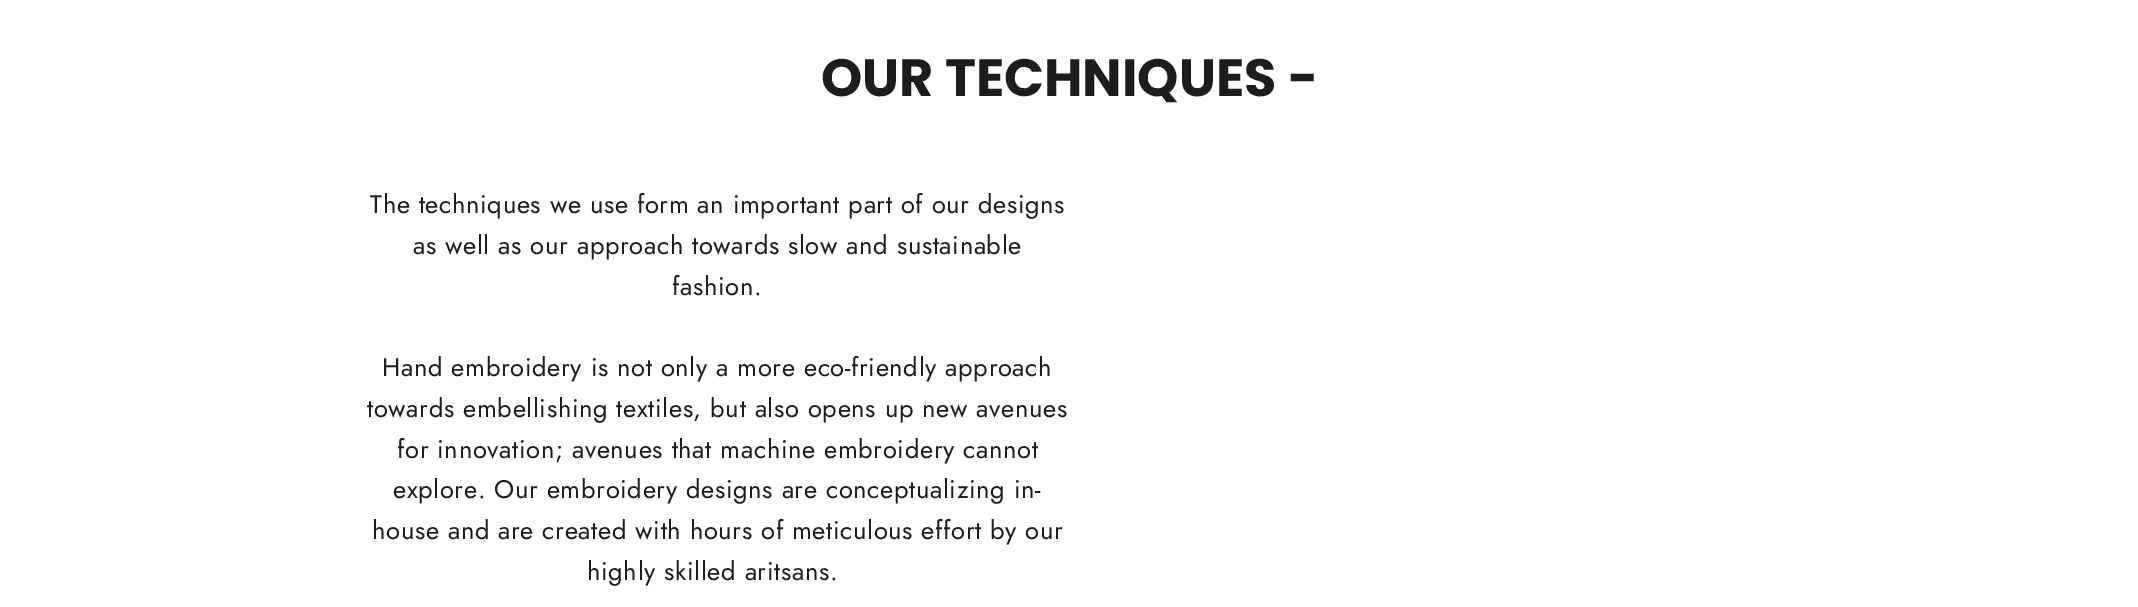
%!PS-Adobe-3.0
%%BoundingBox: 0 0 2138 607
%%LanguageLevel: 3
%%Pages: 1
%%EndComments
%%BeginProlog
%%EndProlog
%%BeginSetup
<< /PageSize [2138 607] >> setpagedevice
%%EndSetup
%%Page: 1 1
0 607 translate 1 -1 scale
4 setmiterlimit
1 setgray
0 0 2138 607 rectfill
/Poppins-Bold [52.5 0 0 -52.5 0 0] selectfont
0.11 0.114 0.114 setrgbcolor
821 96 moveto (OUR TECHNIQUES -) show
/Jost-Regular [25.5 0 0 -25.5 0 0] selectfont
370 213 moveto 0.65 0 (The techniques we use form an important part of our designs) ashow
413 254 moveto 0.65 0 (as well as our approach towards slow and sustainable) ashow
672 295 moveto 0.65 0 (fashion.) ashow
382 376 moveto 0.65 0 (Hand embroidery is not only a more eco-friendly approach) ashow
367 417 moveto 0.65 0 (towards embellishing textiles, but also opens up new avenues) ashow
397 458 moveto 0.65 0 (for innovation; avenues that machine embroidery cannot) ashow
393 498 moveto 0.65 0 (explore. Our embroidery designs are conceptualizing in-) ashow
372 539 moveto 0.65 0 (house and are created with hours of meticulous effort by our) ashow
587 580 moveto 0.65 0 (highly skilled aritsans.) ashow
showpage
%%EOF
